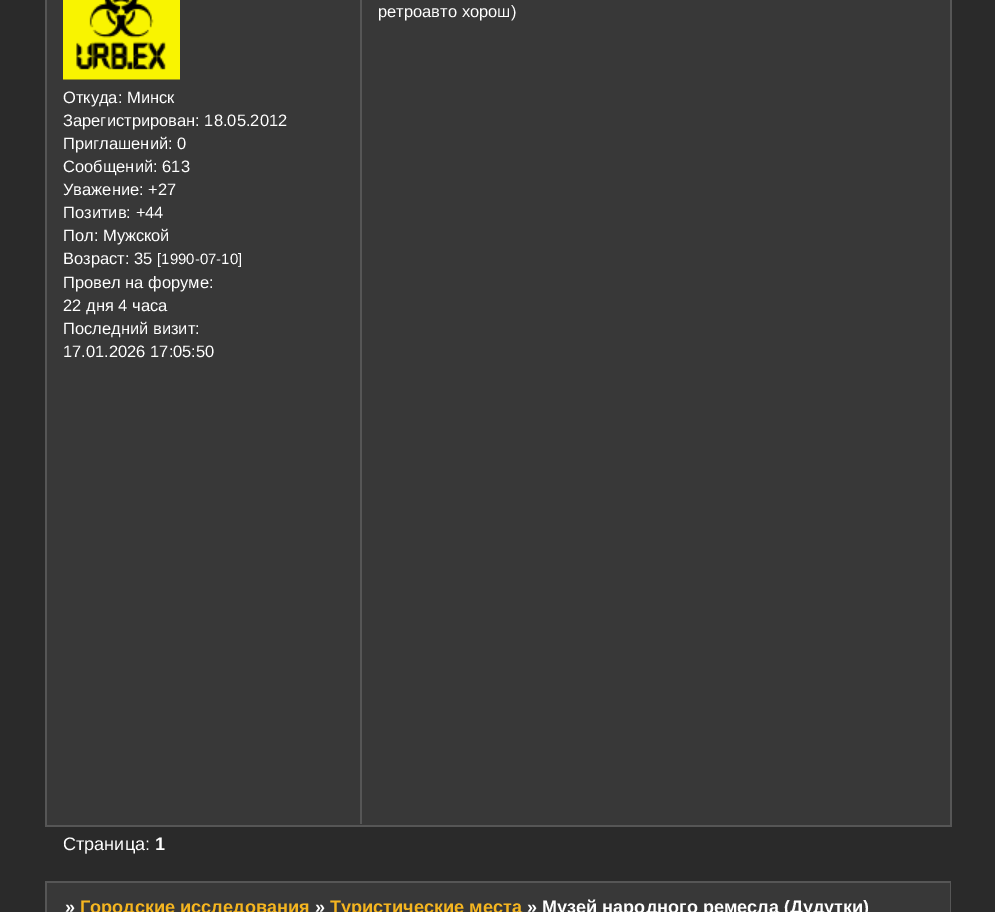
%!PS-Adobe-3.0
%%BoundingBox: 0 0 995 912
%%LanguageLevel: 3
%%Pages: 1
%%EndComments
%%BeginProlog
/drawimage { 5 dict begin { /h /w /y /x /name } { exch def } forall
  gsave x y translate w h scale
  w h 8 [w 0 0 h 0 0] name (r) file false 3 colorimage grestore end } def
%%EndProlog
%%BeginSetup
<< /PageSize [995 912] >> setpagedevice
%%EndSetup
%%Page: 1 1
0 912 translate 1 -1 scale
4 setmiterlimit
0.165 setgray
0 0 995 912 rectfill
0.22 setgray
47 0 903 825 rectfill
0.337 setgray
950 0 2 827 rectfill
45 825 906 2 rectfill
45 0 2 827 rectfill
360 0 2 824 rectfill
(images/1.raw) 63 0 117 80 drawimage
0.22 setgray
47 883 903 29 rectfill
0.337 setgray
45 881 906 2 rectfill
950 881 1 31 rectfill
45 881 2 31 rectfill
/LiberationSans-Regular [16.5 0 0 -16.5 0 0] selectfont
1 setgray
378 17 moveto (ретроавто хорош\)) show
63 103 moveto (Откуда: Минск) show
63 126 moveto (Зарегистрирован: 18.05.2012) show
63 149 moveto (Приглашений: 0) show
63 172 moveto (Сообщений: 613) show
63 195 moveto (Уважение: +27) show
63 218 moveto (Позитив: +44) show
63 241 moveto (Пол: Мужской) show
63 264 moveto (Возраст: 35) show
/LiberationSans-Regular [15 0 0 -15 0 0] selectfont
157 264 moveto ([1990-07-10]) show
/LiberationSans-Regular [16.5 0 0 -16.5 0 0] selectfont
63 288 moveto (Провел на форуме:) show
63 311 moveto (22 дня 4 часа) show
63 334 moveto (Последний визит:) show
63 357 moveto (17.01.2026 17:05:50) show
/LiberationSans-Regular [18.1 0 0 -18.1 0 0] selectfont
63 850 moveto (Страница:) show
/LiberationSans-Bold [18.1 0 0 -18.1 0 0] selectfont
155 850 moveto (1) show
65 913 moveto (») show
0.965 0.714 0.125 setrgbcolor
80 913 moveto (Городские исследования) show
1 setgray
315 913 moveto (») show
0.965 0.714 0.125 setrgbcolor
330 913 moveto (Туристические места) show
1 setgray
527 913 moveto (» Музей народного ремесла \(Дудутки\)) show
showpage
%%EOF
